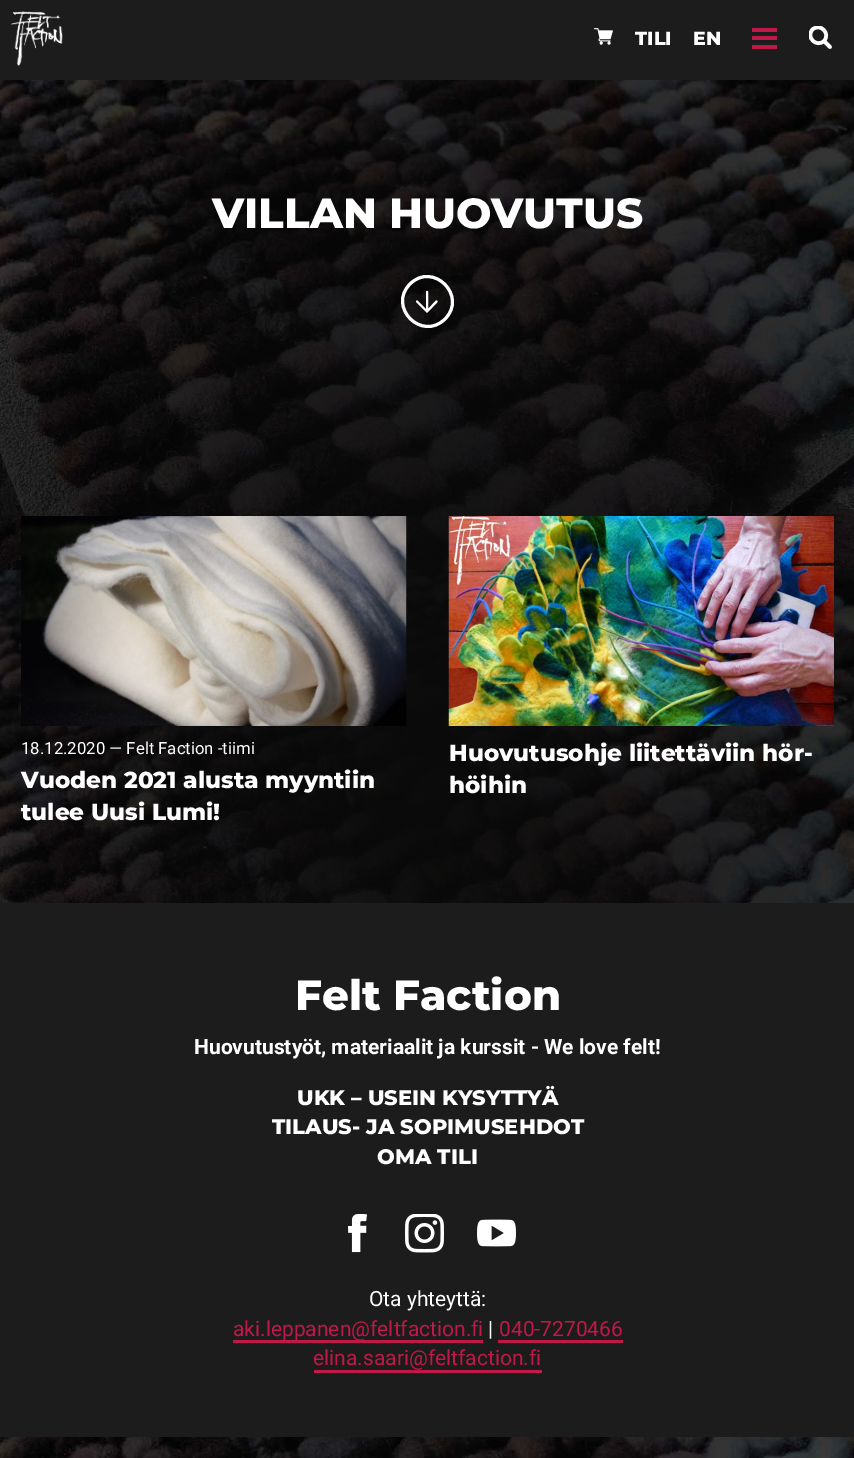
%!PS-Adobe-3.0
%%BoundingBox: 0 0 854 1458
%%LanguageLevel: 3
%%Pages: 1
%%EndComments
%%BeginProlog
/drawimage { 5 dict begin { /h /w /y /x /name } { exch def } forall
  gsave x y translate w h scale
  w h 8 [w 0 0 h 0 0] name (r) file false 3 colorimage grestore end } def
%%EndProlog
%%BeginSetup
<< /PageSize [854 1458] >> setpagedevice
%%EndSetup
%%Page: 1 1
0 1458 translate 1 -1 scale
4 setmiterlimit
1 setgray
0 0 854 1458 rectfill
(images/1.raw) 0 80 854 1378 drawimage
0.11 setgray
0 0 854 80 rectfill
(images/2.raw) 10 11 53 55 drawimage
(images/3.raw) 594 28 19 17 drawimage
0.753 0.094 0.282 setrgbcolor
752 28 25 4 rectfill
752 36 25 4 rectfill
752 45 25 4 rectfill
gsave
809 26 25 25 rectclip
1 setgray
3.6 setlinewidth
1 setlinecap
newpath 824 41 moveto 831 33.5 820 22.5 812.5 29.5 curveto 805.5 37 816.5 48 824 41 curveto 830 47 lineto stroke
grestore
1 setgray
2.1 setlinewidth
1 setlinecap
1 setlinejoin
newpath 436.5 301.5 moveto 427 311.5 lineto 417 301.5 lineto 427 311.5 moveto 427 292 lineto stroke
3 setlinewidth
0 setlinecap
0 setlinejoin
newpath 445 319 moveto 422 342 387 307 410 284 curveto 433 261 468 296 445 319 curveto closepath stroke
(images/4.raw) 21 516 386 210 drawimage
(images/5.raw) 448 516 386 210 drawimage
0.11 setgray
0 903 854 534 rectfill
(images/6.raw) 348 1214 19 39 drawimage
(images/7.raw) 405 1214 39 39 drawimage
(images/8.raw) 477 1219 39 28 drawimage
0.753 0.094 0.282 setrgbcolor
233 1340 250 3 rectfill
498 1340 125 3 rectfill
314 1370 228 3 rectfill
/Montserrat-Thin [19 0 0 -19 0 0] selectfont
1 setgray
635 45 moveto (TILI) show
693 45 moveto (EN) show
/Montserrat-Thin [42 0 0 -42 0 0] selectfont
212 228 moveto (VILLAN HUOVUTUS) show
/Roboto-Regular [16.75 0 0 -16.75 0 0] selectfont
21 754 moveto (18.12.2020 — Felt Faction -tiimi) show
/Montserrat-Thin [23.1 0 0 -23.1 0 0] selectfont
21 788 moveto (Vuoden 2021 alusta myyntiin) show
21 820 moveto (tulee Uusi Lumi!) show
449 761 moveto (Huovutusohje liitettäviin hör-) show
449 793 moveto (höihin) show
/Montserrat-Thin [42 0 0 -42 0 0] selectfont
295 1010 moveto (Felt Faction) show
/Roboto-Bold [21 0 0 -21 0 0] selectfont
194 1054 moveto (Huovutustyöt, materiaalit ja kurssit - We love felt!) show
/Montserrat-Thin [21 0 0 -21 0 0] selectfont
297 1105 moveto (UKK – USEIN KYSYTTYÄ) show
272 1134 moveto (TILAUS- JA SOPIMUSEHDOT) show
377 1164 moveto (OMA TILI) show
/Roboto-Regular [21 0 0 -21 0 0] selectfont
369 1306 moveto (Ota yhteyttä:) show
0.753 0.094 0.282 setrgbcolor
233 1336 moveto (aki.leppanen@feltfaction.fi) show
1 setgray
488 1336 moveto (|) show
0.753 0.094 0.282 setrgbcolor
499 1336 moveto (040-7270466) show
313 1365 moveto (elina.saari@feltfaction.fi) show
showpage
%%EOF
